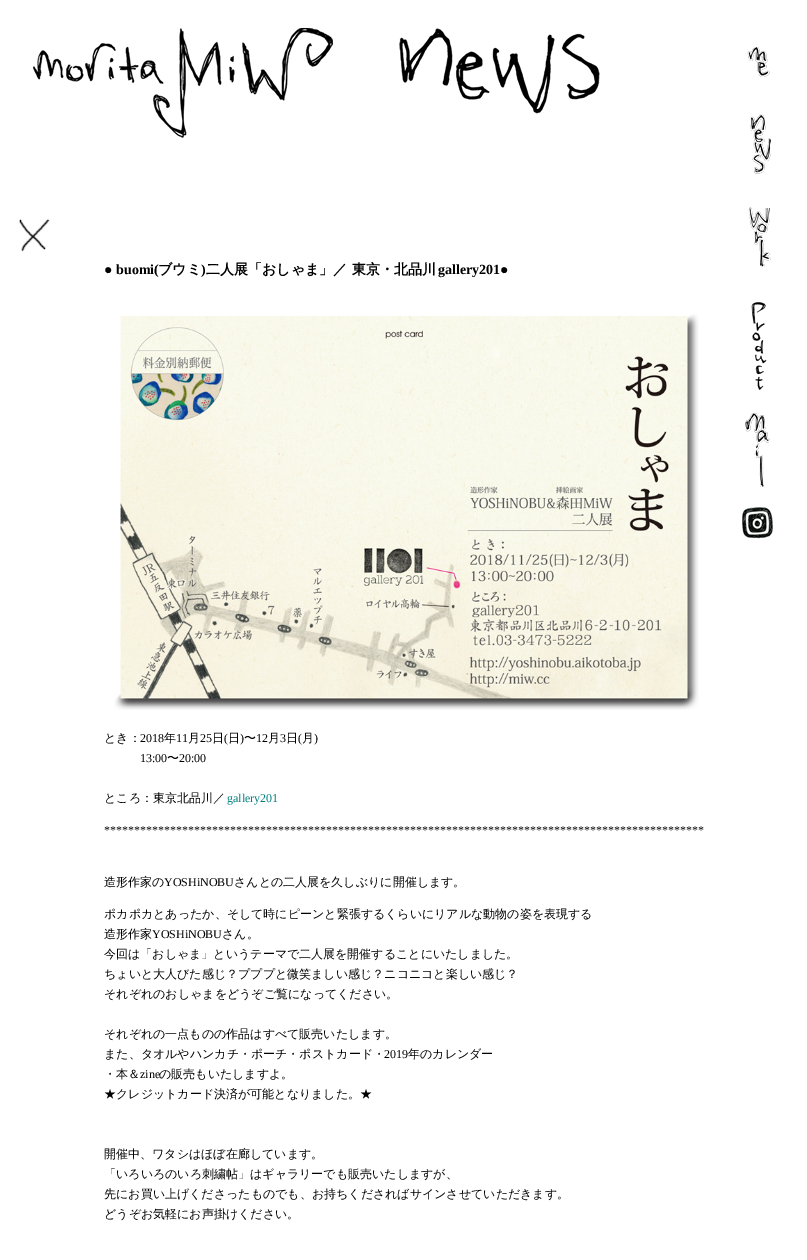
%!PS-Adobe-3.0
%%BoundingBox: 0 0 807 1260
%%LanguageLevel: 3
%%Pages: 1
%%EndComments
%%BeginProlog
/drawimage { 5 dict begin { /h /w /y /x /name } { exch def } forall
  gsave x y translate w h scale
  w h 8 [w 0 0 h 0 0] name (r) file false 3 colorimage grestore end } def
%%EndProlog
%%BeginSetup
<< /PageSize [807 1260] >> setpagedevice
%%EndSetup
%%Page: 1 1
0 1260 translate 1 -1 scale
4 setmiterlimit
1 setgray
0 0 807 1260 rectfill
(images/1.raw) 33 28 567 110 drawimage
(images/2.raw) 747 47 23 30 drawimage
(images/3.raw) 750 114 21 60 drawimage
(images/4.raw) 748 207 23 60 drawimage
(images/5.raw) 751 302 16 88 drawimage
(images/6.raw) 745 412 25 75 drawimage
(images/7.raw) 742 507 32 32 drawimage
(images/8.raw) 19 219 31 33 drawimage
(images/9.raw) 114 314 585 396 drawimage
/LiberationSerif-Bold [14 0 0 -14 0 0] selectfont
0 setgray
104 274 moveto (● buomi\() show
/WenQuanYiZenHei-Bold [14 0 0 -14 0 0] selectfont
158 274 moveto (ブウミ) show
/LiberationSerif-Bold [14 0 0 -14 0 0] selectfont
201 274 moveto (\)) show
/WenQuanYiZenHei-Bold [14 0 0 -14 0 0] selectfont
206 274 moveto (二人展「おしゃま」／ 東京・北品川) show
/LiberationSerif-Bold [14 0 0 -14 0 0] selectfont
438 274 moveto (gallery201●) show
/WenQuanYiZenHei-Medium [12 0 0 -12 0 0] selectfont
104 742 moveto (とき：) show
/LiberationSerif-Regular [12 0 0 -12 0 0] selectfont
140 742 moveto (2018) show
/WenQuanYiZenHei-Medium [12 0 0 -12 0 0] selectfont
164 742 moveto (年) show
/LiberationSerif-Regular [12 0 0 -12 0 0] selectfont
176 742 moveto (11) show
/WenQuanYiZenHei-Medium [12 0 0 -12 0 0] selectfont
188 742 moveto (月) show
/LiberationSerif-Regular [12 0 0 -12 0 0] selectfont
200 742 moveto (25) show
/WenQuanYiZenHei-Medium [12 0 0 -12 0 0] selectfont
212 742 moveto (日) show
/LiberationSerif-Regular [12 0 0 -12 0 0] selectfont
224 742 moveto (\() show
/WenQuanYiZenHei-Medium [12 0 0 -12 0 0] selectfont
228 742 moveto (日) show
/LiberationSerif-Regular [12 0 0 -12 0 0] selectfont
240 742 moveto (\)) show
/WenQuanYiZenHei-Medium [12 0 0 -12 0 0] selectfont
244 742 moveto (〜) show
/LiberationSerif-Regular [12 0 0 -12 0 0] selectfont
256 742 moveto (12) show
/WenQuanYiZenHei-Medium [12 0 0 -12 0 0] selectfont
268 742 moveto (月) show
/LiberationSerif-Regular [12 0 0 -12 0 0] selectfont
280 742 moveto (3) show
/WenQuanYiZenHei-Medium [12 0 0 -12 0 0] selectfont
286 742 moveto (日) show
/LiberationSerif-Regular [12 0 0 -12 0 0] selectfont
298 742 moveto (\() show
/WenQuanYiZenHei-Medium [12 0 0 -12 0 0] selectfont
302 742 moveto (月) show
/LiberationSerif-Regular [12 0 0 -12 0 0] selectfont
314 742 moveto (\)) show
140 762 moveto (13:00) show
/WenQuanYiZenHei-Medium [12 0 0 -12 0 0] selectfont
167 762 moveto (〜) show
/LiberationSerif-Regular [12 0 0 -12 0 0] selectfont
179 762 moveto (20:00) show
/WenQuanYiZenHei-Medium [12 0 0 -12 0 0] selectfont
104 802 moveto (ところ：東京北品川／) show
/LiberationSerif-Regular [12 0 0 -12 0 0] selectfont
0 0.502 0.502 setrgbcolor
227 802 moveto (gallery201) show
0 setgray
104 834 moveto (****************************************************************************************************) show
/WenQuanYiZenHei-Medium [12 0 0 -12 0 0] selectfont
104 886 moveto (造形作家の) show
/LiberationSerif-Regular [12 0 0 -12 0 0] selectfont
164 886 moveto (YOSHiNOBU) show
/WenQuanYiZenHei-Medium [12 0 0 -12 0 0] selectfont
234 886 moveto (さんとの二人展を久しぶりに開催します。) show
104 918 moveto (ポカポカとあったか、そして時にピーンと緊張するくらいにリアルな動物の姿を表現する) show
104 938 moveto (造形作家) show
/LiberationSerif-Regular [12 0 0 -12 0 0] selectfont
152 938 moveto (YOSHiNOBU) show
/WenQuanYiZenHei-Medium [12 0 0 -12 0 0] selectfont
222 938 moveto (さん。) show
104 958 moveto (今回は「おしゃま」というテーマで二人展を開催することにいたしました。) show
104 978 moveto (ちょいと大人びた感じ？プププと微笑ましい感じ？ニコニコと楽しい感じ？) show
104 998 moveto (それぞれのおしゃまをどうぞご覧になってください。) show
104 1038 moveto (それぞれの一点ものの作品はすべて販売いたします。) show
104 1058 moveto (また、タオルやハンカチ・ポーチ・ポストカード・) show
/LiberationSerif-Regular [12 0 0 -12 0 0] selectfont
384 1058 moveto (2019) show
/WenQuanYiZenHei-Medium [12 0 0 -12 0 0] selectfont
408 1058 moveto (年のカレンダー) show
104 1078 moveto (・本＆) show
/LiberationSerif-Regular [12 0 0 -12 0 0] selectfont
140 1078 moveto (zine) show
/WenQuanYiZenHei-Medium [12 0 0 -12 0 0] selectfont
159 1078 moveto (の販売もいたしますよ。) show
104 1098 moveto (★クレジットカード決済が可能となりました。★) show
104 1158 moveto (開催中、ワタシはほぼ在廊しています。) show
104 1178 moveto (「いろいろのいろ刺繍帖」はギャラリーでも販売いたしますが、) show
104 1198 moveto (先にお買い上げくださったものでも、お持ちくださればサインさせていただきます。) show
104 1218 moveto (どうぞお気軽にお声掛けください。) show
showpage
%%EOF
